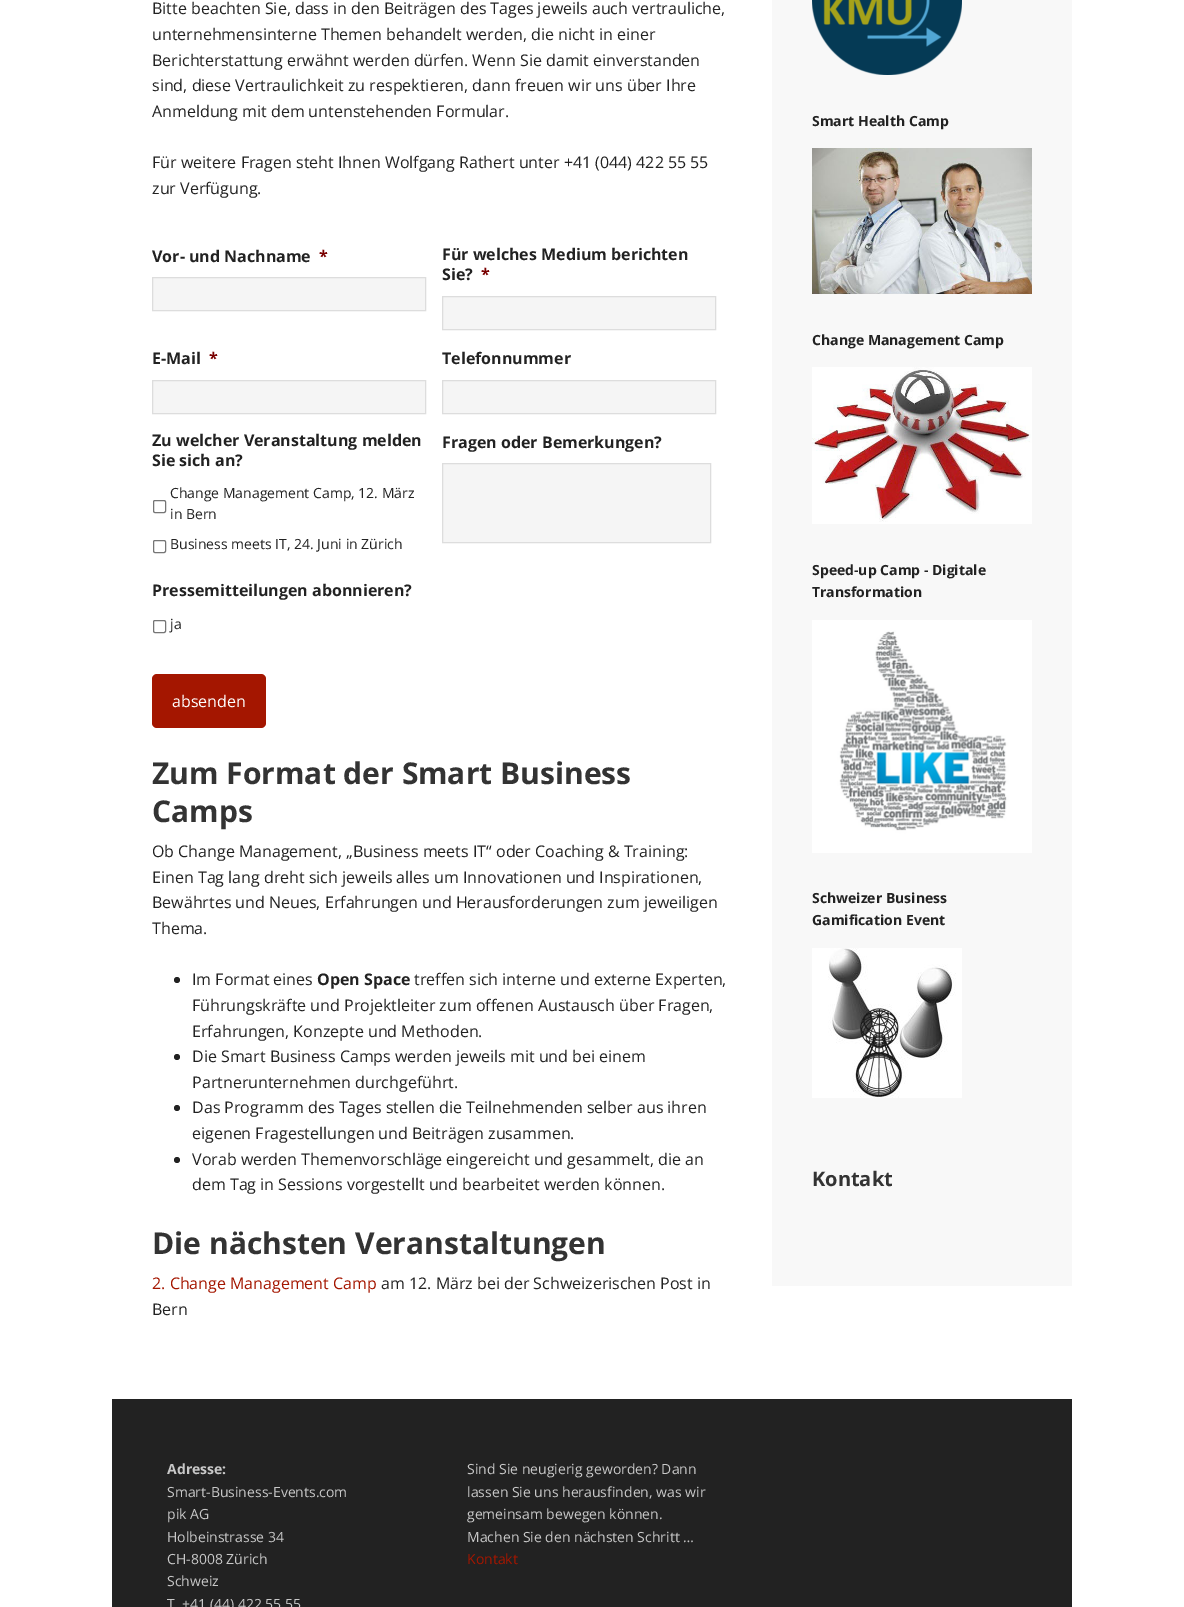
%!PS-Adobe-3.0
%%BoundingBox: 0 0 1184 1607
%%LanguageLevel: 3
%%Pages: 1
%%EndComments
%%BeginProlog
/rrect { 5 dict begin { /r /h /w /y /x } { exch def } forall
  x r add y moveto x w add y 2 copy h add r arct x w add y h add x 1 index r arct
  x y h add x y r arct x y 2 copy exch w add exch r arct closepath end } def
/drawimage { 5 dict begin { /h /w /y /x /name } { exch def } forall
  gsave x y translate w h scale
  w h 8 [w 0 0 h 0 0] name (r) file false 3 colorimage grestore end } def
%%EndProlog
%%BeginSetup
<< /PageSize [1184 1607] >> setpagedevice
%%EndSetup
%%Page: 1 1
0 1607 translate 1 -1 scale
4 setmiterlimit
1 setgray
0 0 1184 1607 rectfill
0.961 setgray
newpath 152.5 277.5 moveto 425.5 277.5 lineto 425.5 310.5 lineto 152.5 310.5 lineto closepath gsave fill grestore
0.867 setgray
stroke
0.961 setgray
newpath 442.5 296.5 moveto 715.5 296.5 lineto 715.5 329.5 lineto 442.5 329.5 lineto closepath gsave fill grestore
0.867 setgray
stroke
0.961 setgray
newpath 152.5 380.5 moveto 425.5 380.5 lineto 425.5 413.5 lineto 152.5 413.5 lineto closepath gsave fill grestore
0.867 setgray
stroke
0.961 setgray
newpath 442.5 380.5 moveto 715.5 380.5 lineto 715.5 413.5 lineto 442.5 413.5 lineto closepath gsave fill grestore
0.867 setgray
stroke
0.463 setgray
153.5 500.5 12 12 1.5 rrect stroke
153.5 540.5 12 12 1.5 rrect stroke
0.961 setgray
newpath 442.5 463.5 moveto 710.5 463.5 lineto 710.5 542.5 lineto 442.5 542.5 lineto closepath gsave fill grestore
0.867 setgray
stroke
0.463 setgray
153.5 620.5 12 12 1.5 rrect stroke
0.643 0.086 0 setrgbcolor
152 674 114 54 5 rrect fill
0.133 setgray
newpath 177 980 3 0 360 arc closepath fill
newpath 177 1057 3 0 360 arc closepath fill
newpath 177 1108 3 0 360 arc closepath fill
newpath 177 1160 3 0 360 arc closepath fill
0.973 setgray
772 0 300 1286 rectfill
(images/1.raw) 812 0 150 75 drawimage
(images/2.raw) 812 148 220 146 drawimage
(images/3.raw) 812 367 220 157 drawimage
(images/4.raw) 812 620 220 233 drawimage
(images/5.raw) 812 948 150 150 drawimage
0.133 setgray
112 1399 960 208 rectfill
/OpenSans-Regular [16 0 0 -16 0 0] selectfont
152 14 moveto (Bitte beachten Sie, dass in den Beiträgen des Tages jeweils auch vertrauliche,) show
152 40 moveto (unternehmensinterne Themen behandelt werden, die nicht in einer) show
152 66 moveto (Berichterstattung erwähnt werden dürfen. Wenn Sie damit einverstanden) show
152 91 moveto (sind, diese Vertraulichkeit zu respektieren, dann freuen wir uns über Ihre) show
152 117 moveto (Anmeldung mit dem untenstehenden Formular.) show
152 168 moveto (Für weitere Fragen steht Ihnen Wolfgang Rathert unter +41 \(044\) 422 55 55) show
152 194 moveto (zur Verfügung.) show
/OpenSans-Bold [16 0 0 -16 0 0] selectfont
152 262 moveto (Vor- und Nachname) show
0.475 0 0 setrgbcolor
319 262 moveto (*) show
0.133 setgray
442 260 moveto (Für welches Medium berichten) show
442 280 moveto (Sie?) show
0.475 0 0 setrgbcolor
481 280 moveto (*) show
0.133 setgray
152 364 moveto (E-Mail) show
0.475 0 0 setrgbcolor
209 364 moveto (*) show
0.133 setgray
442 364 moveto (Telefonnummer) show
152 446 moveto (Zu welcher Veranstaltung melden) show
152 466 moveto (Sie sich an?) show
/OpenSans-Regular [14 0 0 -14 0 0] selectfont
170 498 moveto (Change Management Camp, 12. März) show
170 519 moveto (in Bern) show
170 549 moveto (Business meets IT, 24. Juni in Zürich) show
/OpenSans-Bold [16 0 0 -16 0 0] selectfont
442 448 moveto (Fragen oder Bemerkungen?) show
152 596 moveto (Pressemitteilungen abonnieren?) show
/OpenSans-Regular [14 0 0 -14 0 0] selectfont
170 629 moveto (ja) show
/OpenSans-Regular [16 0 0 -16 0 0] selectfont
1 setgray
172 707 moveto (absenden) show
/OpenSans-Bold [30 0 0 -30 0 0] selectfont
0.2 setgray
152 784 moveto (Zum Format der Smart Business) show
152 822 moveto (Camps) show
/OpenSans-Regular [16 0 0 -16 0 0] selectfont
0.133 setgray
152 857 moveto (Ob Change Management, „Business meets IT“ oder Coaching & Training:) show
152 883 moveto (Einen Tag lang dreht sich jeweils alles um Innovationen und Inspirationen,) show
152 908 moveto (Bewährtes und Neues, Erfahrungen und Herausforderungen zum jeweiligen) show
152 934 moveto (Thema.) show
192 985 moveto (Im Format eines) show
/OpenSans-Bold [16 0 0 -16 0 0] selectfont
317 985 moveto (Open Space) show
/OpenSans-Regular [16 0 0 -16 0 0] selectfont
414 985 moveto (treffen sich interne und externe Experten,) show
192 1011 moveto (Führungskräfte und Projektleiter zum offenen Austausch über Fragen,) show
192 1037 moveto (Erfahrungen, Konzepte und Methoden.) show
192 1062 moveto (Die Smart Business Camps werden jeweils mit und bei einem) show
192 1088 moveto (Partnerunternehmen durchgeführt.) show
192 1113 moveto (Das Programm des Tages stellen die Teilnehmenden selber aus ihren) show
192 1139 moveto (eigenen Fragestellungen und Beiträgen zusammen.) show
192 1165 moveto (Vorab werden Themenvorschläge eingereicht und gesammelt, die an) show
192 1190 moveto (dem Tag in Sessions vorgestellt und bearbeitet werden können.) show
/OpenSans-Bold [30 0 0 -30 0 0] selectfont
0.2 setgray
152 1254 moveto (Die nächsten Veranstaltungen) show
/OpenSans-Regular [16 0 0 -16 0 0] selectfont
0.643 0.086 0 setrgbcolor
152 1289 moveto (2. Change Management Camp) show
0.133 setgray
381 1289 moveto (am 12. März bei der Schweizerischen Post in) show
152 1315 moveto (Bern) show
/OpenSans-Bold [14 0 0 -14 0 0] selectfont
812 126 moveto (Smart Health Camp) show
812 345 moveto (Change Management Camp) show
812 575 moveto (Speed-up Camp - Digitale) show
812 597 moveto (Transformation) show
812 903 moveto (Schweizer Business) show
812 925 moveto (Gamification Event) show
/OpenSans-Bold [20 0 0 -20 0 0] selectfont
0.2 setgray
812 1186 moveto (Kontakt) show
/OpenSans-Bold [14 0 0 -14 0 0] selectfont
0.784 setgray
167 1474 moveto (Adresse:) show
/OpenSans-Regular [14 0 0 -14 0 0] selectfont
167 1497 moveto (Smart-Business-Events.com) show
167 1519 moveto (pik AG) show
167 1542 moveto (Holbeinstrasse 34) show
167 1564 moveto (CH-8008 Zürich) show
167 1586 moveto (Schweiz) show
167 1609 moveto (T. +41 \(44\) 422 55 55) show
467 1474 moveto (Sind Sie neugierig geworden? Dann) show
467 1497 moveto (lassen Sie uns herausfinden, was wir) show
467 1519 moveto (gemeinsam bewegen können.) show
467 1542 moveto (Machen Sie den nächsten Schritt …) show
0.643 0.086 0 setrgbcolor
467 1564 moveto (Kontakt) show
showpage
%%EOF
